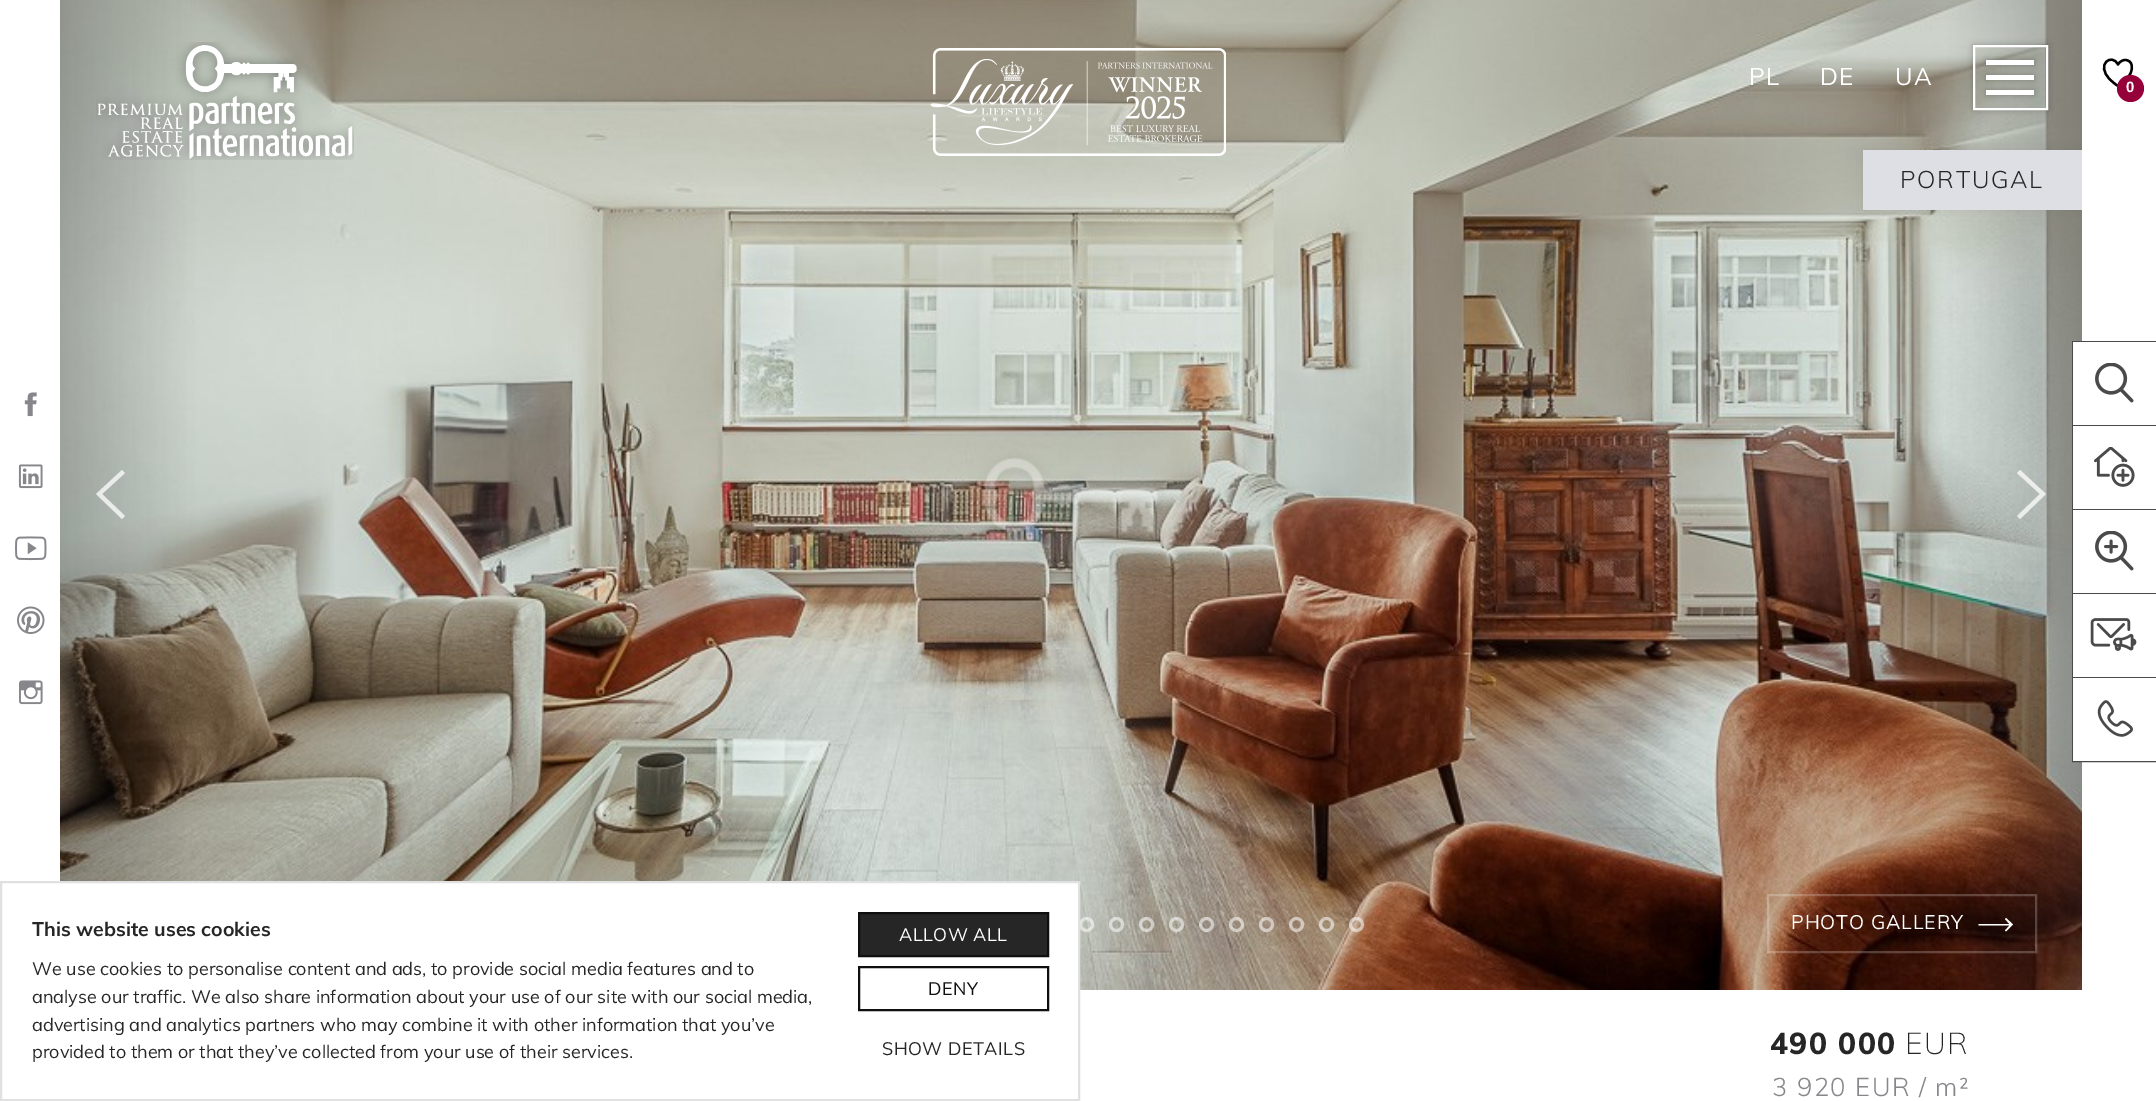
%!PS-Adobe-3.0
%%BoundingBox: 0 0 2156 1101
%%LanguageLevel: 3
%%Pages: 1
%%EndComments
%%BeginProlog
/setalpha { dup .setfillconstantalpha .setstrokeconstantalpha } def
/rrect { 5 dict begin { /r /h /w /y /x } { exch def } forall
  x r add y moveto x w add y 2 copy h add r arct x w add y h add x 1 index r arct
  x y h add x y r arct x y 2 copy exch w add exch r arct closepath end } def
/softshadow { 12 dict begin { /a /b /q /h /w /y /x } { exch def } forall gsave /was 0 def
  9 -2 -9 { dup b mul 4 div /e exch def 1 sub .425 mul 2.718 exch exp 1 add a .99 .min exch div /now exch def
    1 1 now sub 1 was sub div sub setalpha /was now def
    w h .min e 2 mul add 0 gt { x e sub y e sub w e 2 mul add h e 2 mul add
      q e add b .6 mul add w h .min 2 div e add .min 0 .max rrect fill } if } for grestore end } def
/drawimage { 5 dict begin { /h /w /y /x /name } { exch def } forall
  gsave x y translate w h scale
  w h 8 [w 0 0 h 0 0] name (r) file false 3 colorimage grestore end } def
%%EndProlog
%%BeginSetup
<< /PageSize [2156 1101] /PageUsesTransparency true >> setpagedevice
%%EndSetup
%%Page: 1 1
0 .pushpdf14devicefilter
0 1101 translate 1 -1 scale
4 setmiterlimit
1 setgray
0 0 2156 1101 rectfill
(images/3.raw) 60 0 2022 990 drawimage
60 883 1018 107 rectfill
0.55 setalpha
3 setlinewidth
newpath 1086.5 924.5 6 0 360 arc closepath stroke
1 setalpha
0.878 setgray
2 setlinewidth
1 882 1078 218 rectstroke
0.149 setgray
newpath 859 913 moveto 1048 913 lineto 1048 956 lineto 859 956 lineto closepath gsave fill grestore
0.059 setgray
stroke
859 967 189 43 rectstroke
(images/1.raw) 96 42 258 118 drawimage
(images/2.raw) 930 48 296 108 drawimage
gsave
newpath 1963 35 moveto 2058 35 lineto 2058 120 lineto 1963 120 lineto closepath 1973 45 moveto 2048 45 lineto 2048 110 lineto 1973 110 lineto closepath eoclip newpath
0 setgray
1973 45 75 65 0 3 0.25 softshadow
grestore
1 setgray
1974 46 73 63 rectstroke
0 setgray
1986 60 48 5 0 3 0.25 softshadow
1 setgray
1986 60 48 5 rectfill
0 setgray
1986 75 48 5 0 3 0.25 softshadow
1 setgray
1986 75 48 5 rectfill
0 setgray
1986 90 48 5 0 3 0.25 softshadow
1 setgray
1986 90 48 5 rectfill
0 setgray
2.3 setlinewidth
1 setlinecap
1 setlinejoin
newpath 2125 60 moveto 2120.5 60 2118 64.5 2118 64.5 curveto 2112 52.5 2095 64.5 2110 79.5 curveto 2111.5 81 2116 85 2117.5 85.5 curveto 2119 86 2121 84 2121.5 83.5 curveto 2124.5 81 2127.5 78.5 2129.5 75 curveto 2133 70 2133.5 60 2125 60 curveto closepath stroke
0.588 0 0.227 setrgbcolor
newpath 2130.5 88.5 13.5 0 360 arc closepath fill
0.75 setalpha
1 setgray
newpath 102 494 moveto 125 473 lineto 122 470 lineto 96 494 lineto 122 519 lineto 125 516 lineto closepath eofill
newpath 2040 494 moveto 2017 516 lineto 2020 519 lineto 2046 494 lineto 2020 470 lineto 2017 473 lineto closepath eofill
0.55 setalpha
3 setlinewidth
0 setlinecap
0 setlinejoin
newpath 1116.5 924.5 6 0 360 arc closepath stroke
newpath 1146.5 924.5 6 0 360 arc closepath stroke
newpath 1176.5 924.5 6 0 360 arc closepath stroke
newpath 1206.5 924.5 6 0 360 arc closepath stroke
newpath 1236.5 924.5 6 0 360 arc closepath stroke
newpath 1266.5 924.5 6 0 360 arc closepath stroke
newpath 1296.5 924.5 6 0 360 arc closepath stroke
newpath 1326.5 924.5 6 0 360 arc closepath stroke
newpath 1356.5 924.5 6 0 360 arc closepath stroke
gsave
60 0 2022 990 rectclip
1 setalpha
0.149 setgray
1863 150 219 60 0 9 0.1 softshadow
grestore
1 setalpha
0.871 0.871 0.898 setrgbcolor
1863 150 219 60 rectfill
0.22 setalpha
1 setgray
2 setlinewidth
1768 895 268 57 rectstroke
1 setalpha
newpath 2009.5 925.5 moveto 2005 930.5 lineto 2006 931.5 lineto 2013 924.5 lineto 2006 918 lineto 2005 919 lineto 2009.5 924 lineto 1978.5 924 lineto 1978.5 925.5 lineto closepath eofill
(images/4.raw) 24 392 13 25 drawimage
(images/5.raw) 18 464 25 25 drawimage
(images/6.raw) 15 536 32 25 drawimage
(images/7.raw) 17 606 28 28 drawimage
(images/8.raw) 19 680 24 25 drawimage
0.29 setgray
2073 342 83 419 rectstroke
1 setgray
2073 342 83 83 rectfill
(images/9.raw) 2095 363 39 40 drawimage
0.29 setgray
2073 425 83 1 rectfill
1 setgray
2073 426 83 83 rectfill
(images/10.raw) 2094 447 41 40 drawimage
0.29 setgray
2073 509 83 1 rectfill
1 setgray
2073 510 83 83 rectfill
(images/11.raw) 2095 531 39 40 drawimage
0.29 setgray
2073 593 83 1 rectfill
1 setgray
2073 594 83 83 rectfill
(images/12.raw) 2090 618 47 33 drawimage
0.29 setgray
2073 677 83 1 rectfill
1 setgray
2073 678 83 83 rectfill
(images/13.raw) 2097 700 36 37 drawimage
/Muli-Bold [19.5 0 0 -19.5 0 0] selectfont
0.149 setgray
32 936 moveto (This website uses cookies) show
/Muli-Regular [18 0 0 -18 0 0] selectfont
32 975 moveto (We use cookies to personalise content and ads, to provide social media features and to) show
32 1003 moveto (analyse our traffic. We also share information about your use of our site with our social media,) show
32 1031 moveto (advertising and analytics partners who may combine it with other information that you’ve) show
32 1058 moveto (provided to them or that they’ve collected from your use of their services.) show
1 setgray
899 941 moveto 0.5 0 (ALLOW ALL) ashow
0.059 setgray
928 995 moveto 0.5 0 (DENY) ashow
0.149 setgray
882 1055 moveto 0.5 0 (SHOW DETAILS) ashow
/Muli-Regular [24 0 0 -24 0 0] selectfont
1 setgray
1749 85 moveto 1 0 (PL) ashow
1820 85 moveto 1 0 (DE) ashow
1895 85 moveto 1 0 (UA) ashow
/LiberationSans-Bold [15 0 0 -15 0 0] selectfont
2126 92 moveto (0) show
/Muli-Light [24 0 0 -24 0 0] selectfont
0.149 setgray
1900 188 moveto 1.75 0 (PORTUGAL) ashow
/Muli-Regular [19.5 0 0 -19.5 0 0] selectfont
1 setgray
1791 929 moveto 0.9 0 (PHOTO GALLERY) ashow
/Muli-ExtraBold [30 0 0 -30 0 0] selectfont
0.149 setgray
1770 1054 moveto 1.5 0 (490 000) ashow
/Muli-ExtraLight [30 0 0 -30 0 0] selectfont
1905 1054 moveto 1.5 0 (EUR) ashow
/Muli-Light [25.5 0 0 -25.5 0 0] selectfont
0.525 0.525 0.545 setrgbcolor
1772 1096 moveto 1.5 0 (3 920 EUR / m²) ashow
.poppdf14devicefilter showpage
%%EOF
